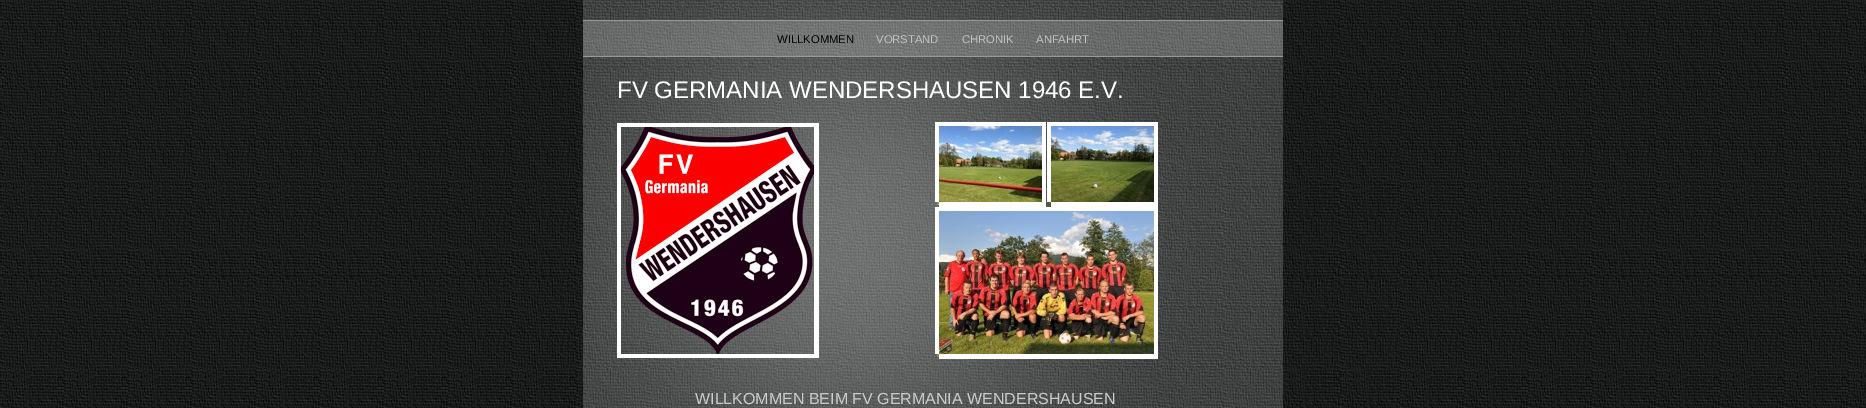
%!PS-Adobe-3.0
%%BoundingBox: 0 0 1866 408
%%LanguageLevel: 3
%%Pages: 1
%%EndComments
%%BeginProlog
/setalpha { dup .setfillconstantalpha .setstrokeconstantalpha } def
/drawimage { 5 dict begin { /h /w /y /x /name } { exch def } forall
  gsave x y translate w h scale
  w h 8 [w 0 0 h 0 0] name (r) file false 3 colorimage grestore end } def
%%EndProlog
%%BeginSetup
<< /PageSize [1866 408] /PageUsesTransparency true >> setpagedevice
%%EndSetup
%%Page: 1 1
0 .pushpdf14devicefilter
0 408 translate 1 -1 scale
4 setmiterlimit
1 setgray
0 0 1866 408 rectfill
(images/1.raw) 0 0 1866 408 drawimage
(images/2.raw) 583 0 700 408 drawimage
0.2 setalpha
583 21 700 35 rectfill
1 setalpha
0.6 setgray
583 20 700 1 rectfill
583 56 700 1 rectfill
1 setgray
617 123 4 231 rectfill
621 123 198 4 rectfill
(images/3.raw) 621 127 193 227 drawimage
814 127 5 231 rectfill
617 354 197 4 rectfill
(images/4.raw) 937 126 105 79 drawimage
935 122 4 80 rectfill
939 122 107 4 rectfill
1042 126 4 81 rectfill
939 202 103 5 rectfill
(images/5.raw) 1049 126 105 79 drawimage
1047 122 4 80 rectfill
1051 122 107 4 rectfill
1154 126 4 81 rectfill
1051 202 103 5 rectfill
(images/6.raw) 937 211 217 146 drawimage
935 207 4 147 rectfill
939 207 219 4 rectfill
1154 211 4 148 rectfill
939 354 215 5 rectfill
/LiberationSans-Regular [11.25 0 0 -11.25 0 0] selectfont
0 setgray
777 43 moveto (WILLKOMMEN) show
0.757 setgray
876 43 moveto (VORSTAND) show
962 43 moveto (CHRONIK) show
1036 43 moveto (ANFAHRT) show
/LiberationSans-Regular [24 0 0 -24 0 0] selectfont
1 setgray
617 98 moveto (FV GERMANIA WENDERSHAUSEN 1946 E.V.) show
/LiberationSans-Regular [16 0 0 -16 0 0] selectfont
0.796 setgray
695 404 moveto (WILLKOMMEN BEIM FV GERMANIA WENDERSHAUSEN) show
.poppdf14devicefilter showpage
%%EOF
